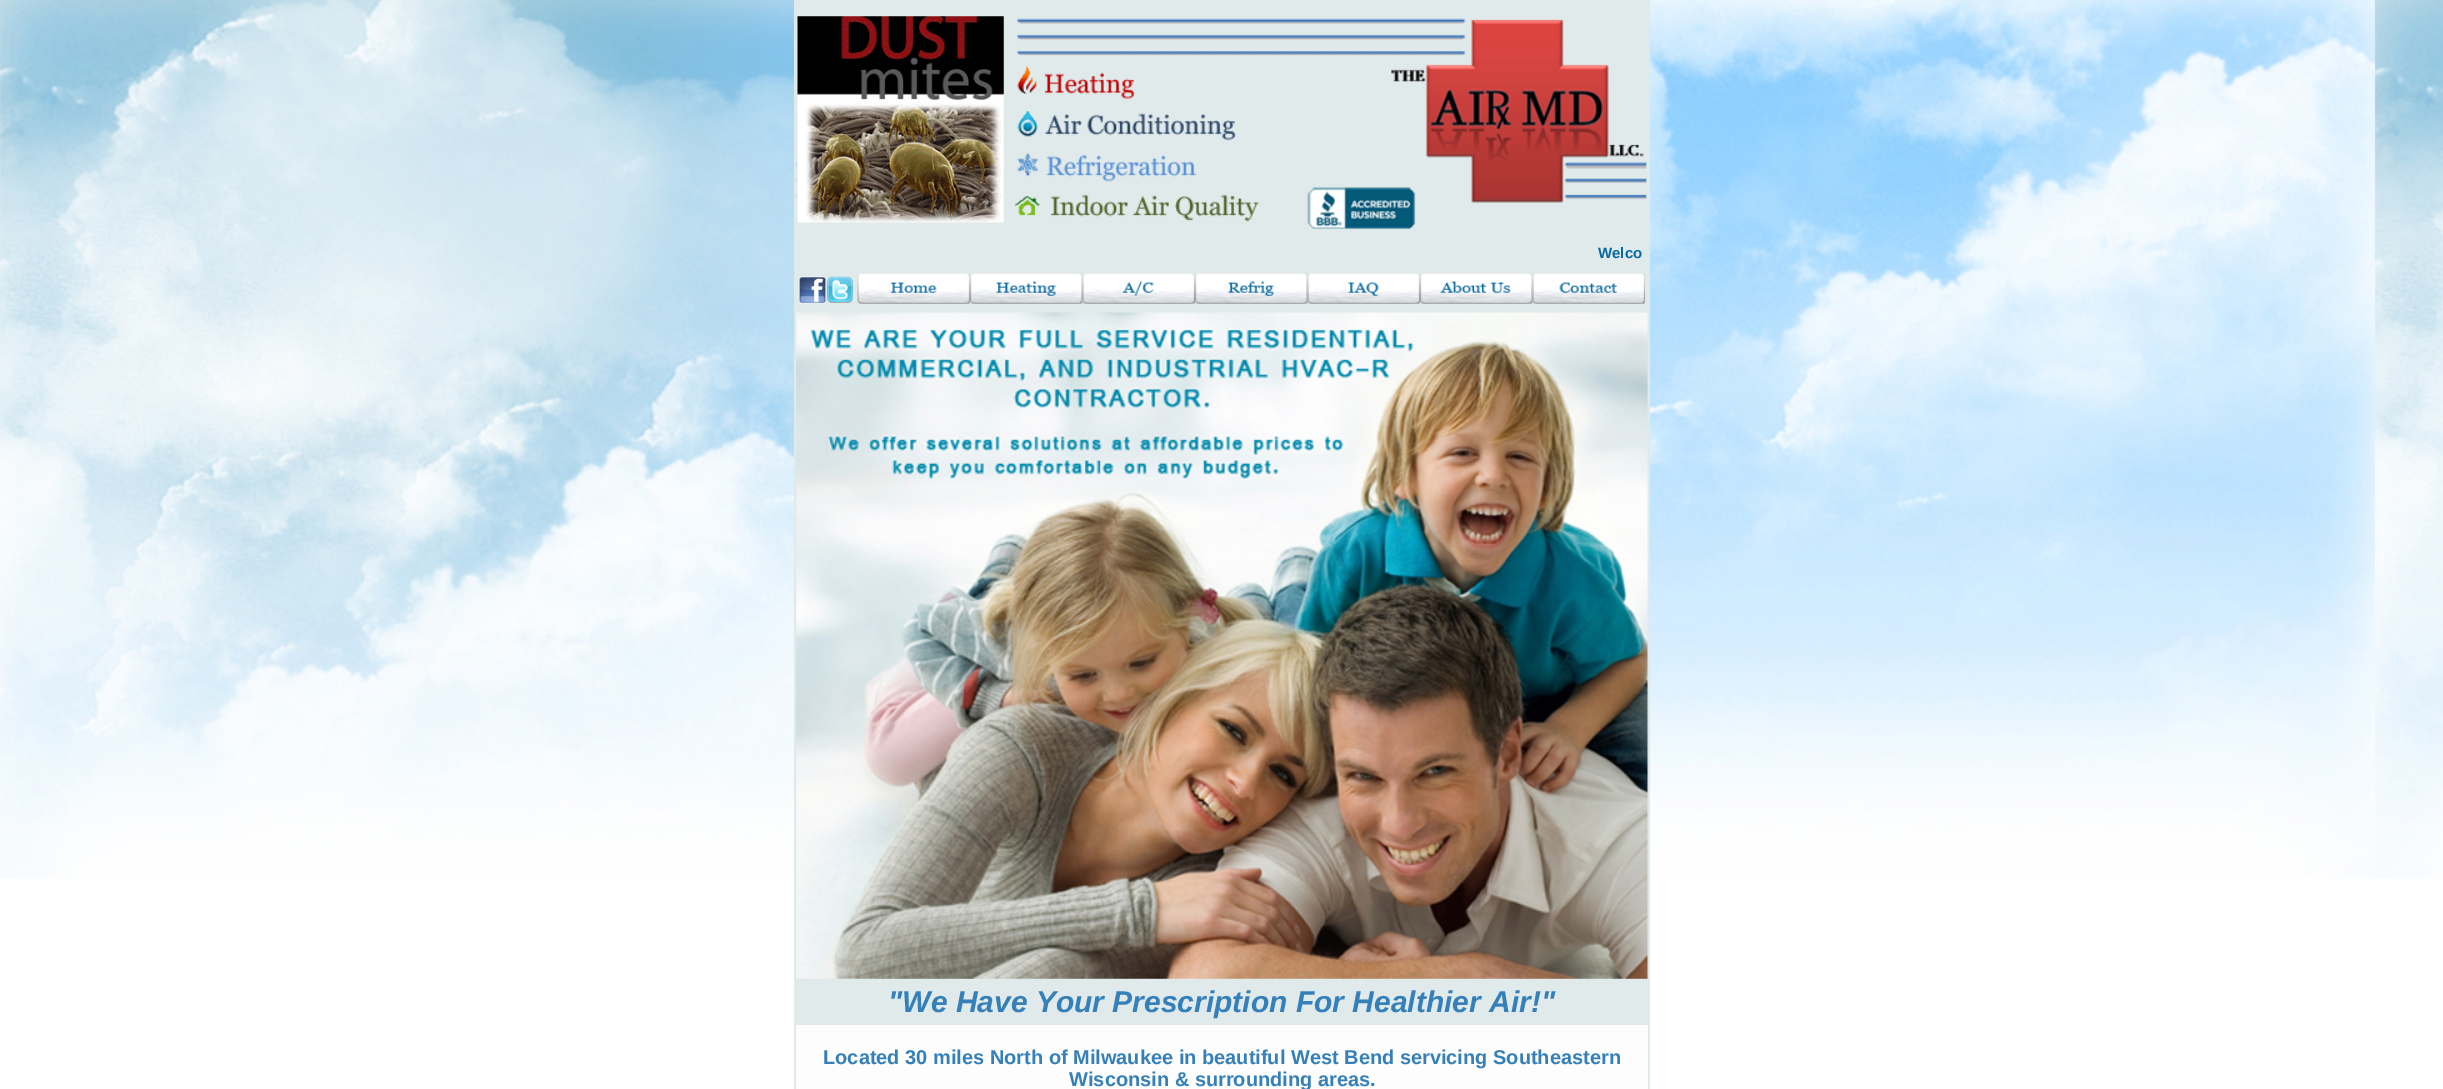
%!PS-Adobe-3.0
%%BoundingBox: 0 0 2443 1089
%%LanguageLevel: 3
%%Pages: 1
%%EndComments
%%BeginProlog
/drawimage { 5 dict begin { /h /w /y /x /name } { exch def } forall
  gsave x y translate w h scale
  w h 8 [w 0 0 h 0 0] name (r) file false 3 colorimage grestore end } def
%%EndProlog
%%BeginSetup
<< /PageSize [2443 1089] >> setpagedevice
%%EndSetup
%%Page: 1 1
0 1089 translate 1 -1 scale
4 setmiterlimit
1 setgray
0 0 2443 1089 rectfill
(images/1.raw) 0 0 2443 1089 drawimage
0.878 0.918 0.922 setrgbcolor
794 0 856 1089 rectfill
(images/2.raw) 796 18 851 211 drawimage
(images/3.raw) 797 16 207 207 drawimage
(images/4.raw) 798 276 29 28 drawimage
(images/5.raw) 827 276 26 27 drawimage
(images/6.raw) 857 273 113 31 drawimage
(images/7.raw) 970 272 113 32 drawimage
(images/8.raw) 1082 273 113 31 drawimage
(images/9.raw) 1195 272 113 32 drawimage
(images/10.raw) 1307 273 113 31 drawimage
(images/11.raw) 1420 272 113 32 drawimage
(images/12.raw) 1532 273 113 31 drawimage
(images/13.raw) 796 312 852 667 drawimage
0.992 setgray
796 1025 852 64 rectfill
/LiberationSans-Bold [15 0 0 -15 0 0] selectfont
0.035 0.408 0.627 setrgbcolor
1598 258 moveto (Welco) show
/LiberationSans-BoldItalic [30 0 0 -30 0 0] selectfont
0.212 0.502 0.725 setrgbcolor
888 1012 moveto ("We Have Your Prescription For Healthier Air!") show
/LiberationSans-Bold [20 0 0 -20 0 0] selectfont
823 1064 moveto (Located 30 miles North of Milwaukee in beautiful West Bend servicing Southeastern) show
1069 1086 moveto (Wisconsin & surrounding areas.) show
showpage
%%EOF
